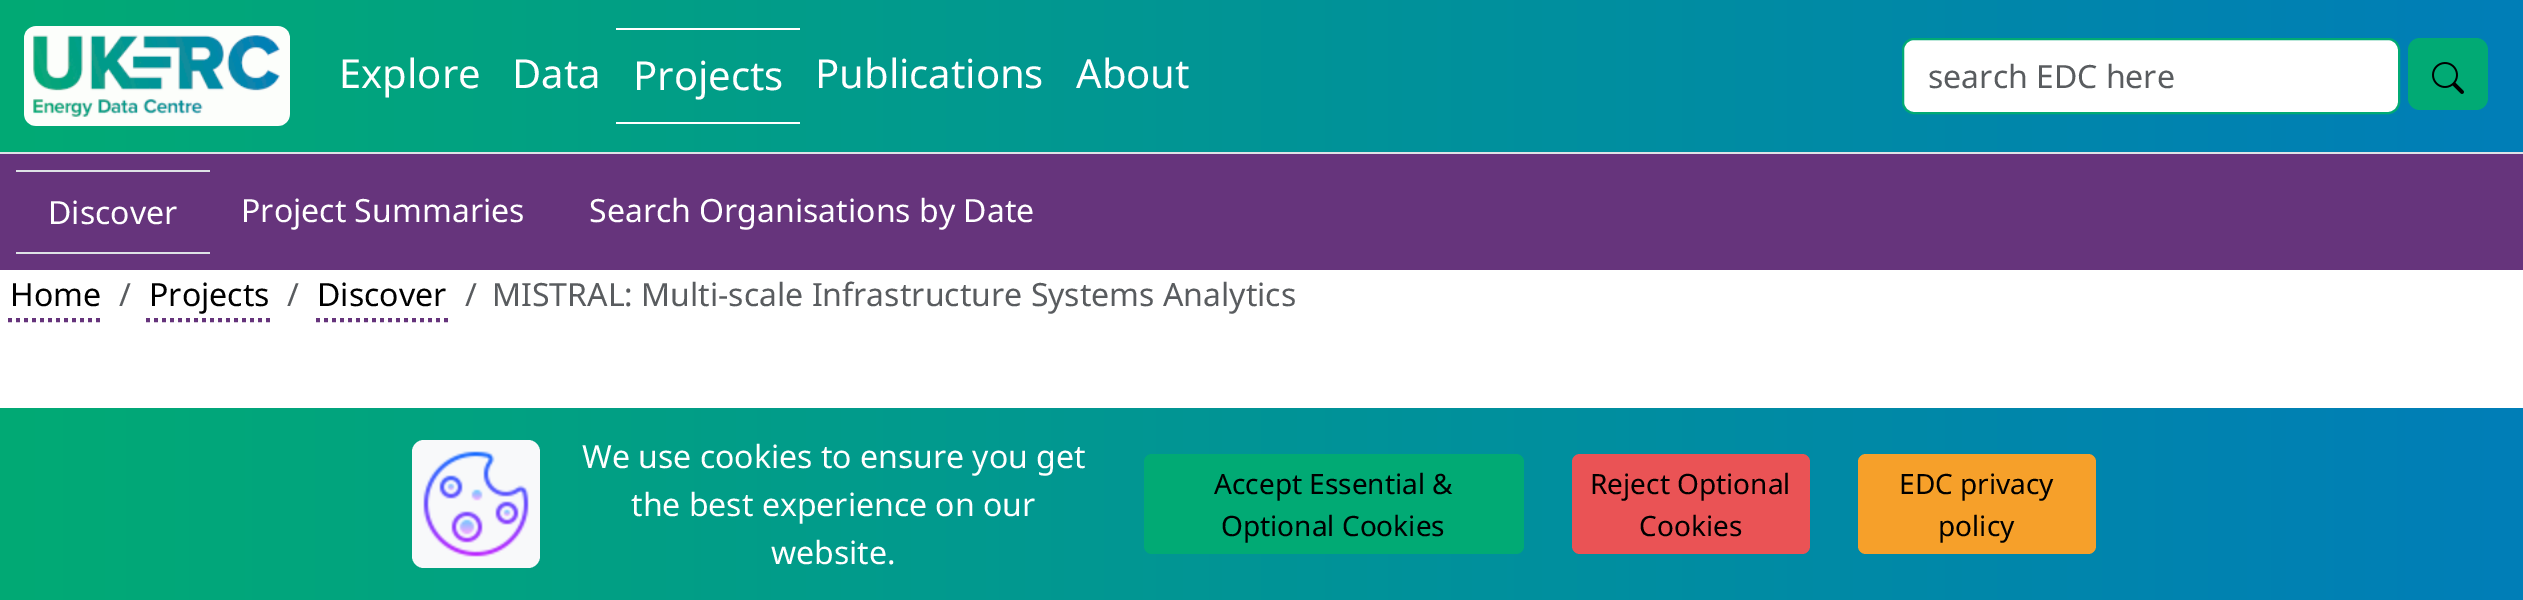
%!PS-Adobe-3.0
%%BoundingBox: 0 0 2523 600
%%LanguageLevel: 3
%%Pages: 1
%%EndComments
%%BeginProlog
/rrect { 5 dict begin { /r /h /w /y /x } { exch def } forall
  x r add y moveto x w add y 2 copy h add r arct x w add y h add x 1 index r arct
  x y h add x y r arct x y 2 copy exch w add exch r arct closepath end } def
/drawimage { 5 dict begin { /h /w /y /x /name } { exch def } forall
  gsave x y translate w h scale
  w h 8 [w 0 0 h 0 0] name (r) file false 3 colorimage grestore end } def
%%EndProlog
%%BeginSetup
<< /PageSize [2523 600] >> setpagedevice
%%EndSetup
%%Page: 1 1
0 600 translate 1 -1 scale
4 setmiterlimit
1 setgray
0 0 2523 600 rectfill
gsave newpath 0 0 moveto 2523 0 lineto 2523 152 lineto 0 152 lineto closepath clip newpath
<< /ShadingType 2 /ColorSpace /DeviceRGB /Coords [0 76 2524 76] /Extend [true true] /Function << /FunctionType 2 /Domain [0 1] /C0 [0.004 0.667 0.455] /C1 [0 0.494 0.722] /N 1 >> >> shfill grestore
0.871 0.886 0.902 setrgbcolor
0 152 2523 2 rectfill
(images/1.raw) 24 26 266 100 drawimage
1 setgray
616 28 184 2 rectfill
616 122 184 2 rectfill
1903 39 496 74 11 rrect gsave fill grestore
0.004 0.667 0.455 setrgbcolor
2 setlinewidth
stroke
2408 38 80 72 12 rrect fill
(images/2.raw) 2432 62 32 32 drawimage
0.4 0.204 0.486 setrgbcolor
0 154 2523 116 rectfill
0.871 0.886 0.902 setrgbcolor
16 170 194 2 rectfill
16 252 194 2 rectfill
0.4 0.204 0.486 setrgbcolor
4 setlinewidth
[4 4] 0 setdash
newpath 8 320 moveto 104 320 lineto stroke
newpath 146 320 moveto 272 320 lineto stroke
newpath 316 320 moveto 448 320 lineto stroke
gsave newpath 0 408 moveto 2523 408 lineto 2523 600 lineto 0 600 lineto closepath clip newpath
<< /ShadingType 2 /ColorSpace /DeviceRGB /Coords [0 504 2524 504] /Extend [true true] /Function << /FunctionType 2 /Domain [0 1] /C0 [0.004 0.667 0.455] /C1 [0 0.494 0.722] /N 1 >> >> shfill grestore
0.973 0.976 0.98 setrgbcolor
412 440 128 128 12 rrect fill
(images/3.raw) 423 451 106 106 drawimage
0.004 0.667 0.455 setrgbcolor
1144 454 380 100 8 rrect fill
0.918 0.325 0.333 setrgbcolor
1572 454 238 100 8 rrect fill
0.965 0.627 0.165 setrgbcolor
1858 454 238 100 8 rrect fill
/NotoSans-Regular [40 0 0 -40 0 0] selectfont
1 setgray
339 88 moveto (Explore) show
512 88 moveto (Data) show
633 90 moveto (Projects) show
815 88 moveto (Publications) show
1076 88 moveto (About) show
/NotoSans-Regular [32 0 0 -32 0 0] selectfont
0.349 0.361 0.373 setrgbcolor
1928 88 moveto (search EDC here) show
1 setgray
48 224 moveto (Discover) show
241 222 moveto (Project Summaries) show
589 222 moveto (Search Organisations by Date) show
0 setgray
10 306 moveto (Home) show
0.349 0.361 0.373 setrgbcolor
119 306 moveto (/) show
0 setgray
149 306 moveto (Projects) show
0.349 0.361 0.373 setrgbcolor
287 306 moveto (/) show
0 setgray
317 306 moveto (Discover) show
0.349 0.361 0.373 setrgbcolor
465 306 moveto (/) show
492 306 moveto (MISTRAL: Multi-scale Infrastructure Systems Analytics) show
1 setgray
582 468 moveto (We use cookies to ensure you get) show
631 516 moveto (the best experience on our) show
771 564 moveto (website.) show
/NotoSans-Regular [28 0 0 -28 0 0] selectfont
0 setgray
1214 494 moveto (Accept Essential &) show
1221 536 moveto (Optional Cookies) show
1590 494 moveto (Reject Optional) show
1639 536 moveto (Cookies) show
1899 494 moveto (EDC privacy) show
1938 536 moveto (policy) show
showpage
%%EOF
